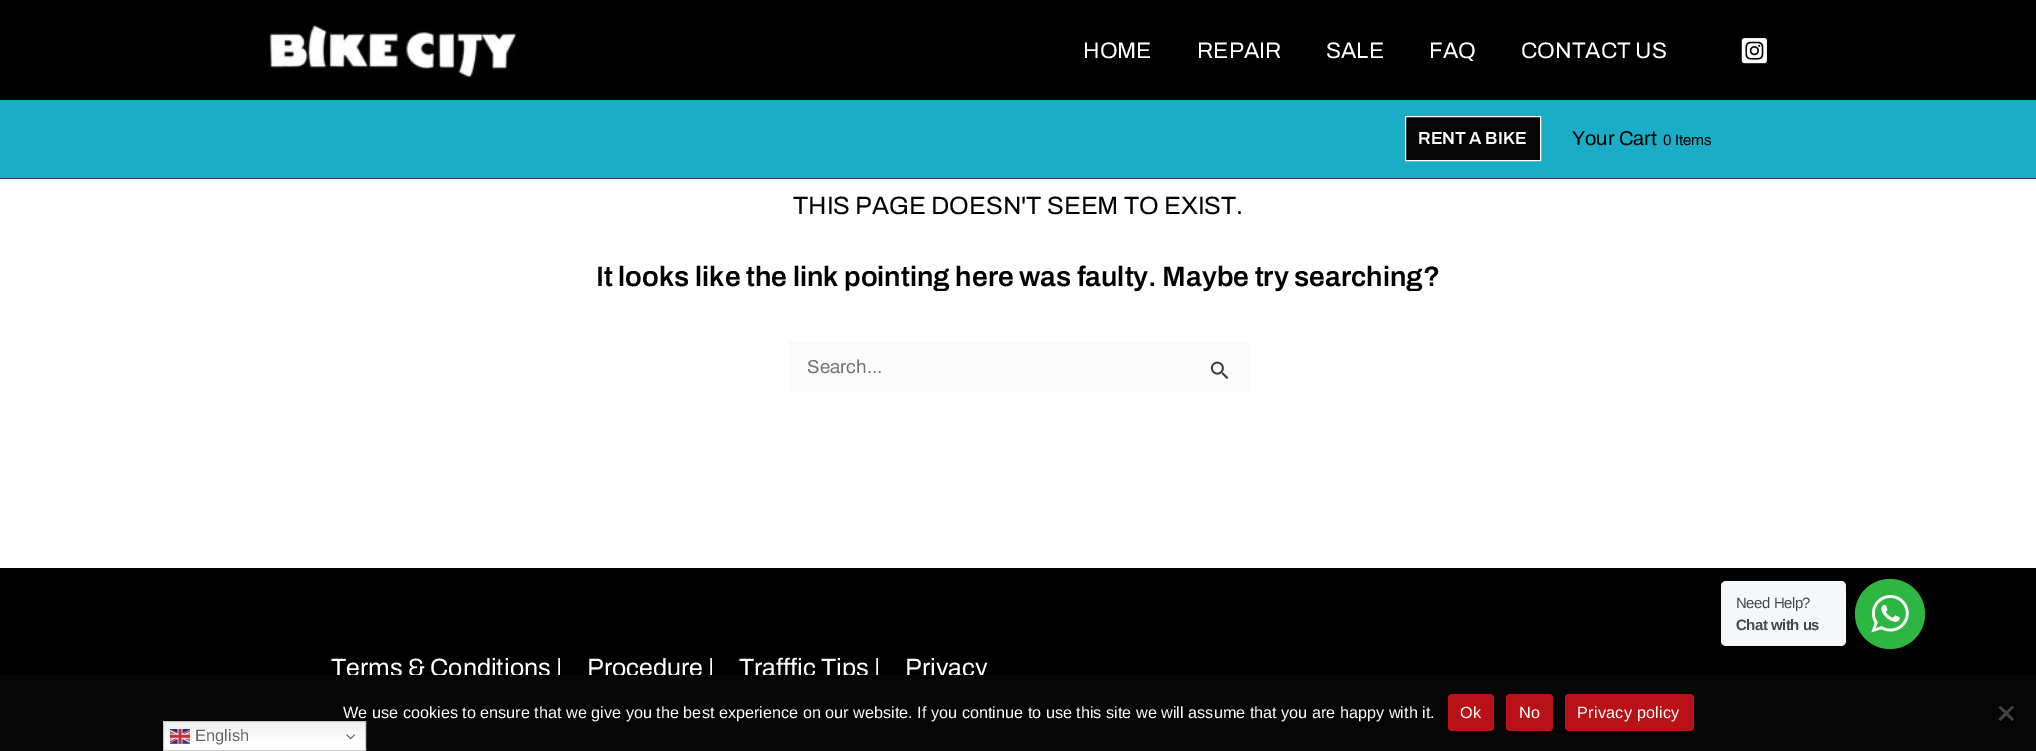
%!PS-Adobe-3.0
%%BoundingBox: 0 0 2036 751
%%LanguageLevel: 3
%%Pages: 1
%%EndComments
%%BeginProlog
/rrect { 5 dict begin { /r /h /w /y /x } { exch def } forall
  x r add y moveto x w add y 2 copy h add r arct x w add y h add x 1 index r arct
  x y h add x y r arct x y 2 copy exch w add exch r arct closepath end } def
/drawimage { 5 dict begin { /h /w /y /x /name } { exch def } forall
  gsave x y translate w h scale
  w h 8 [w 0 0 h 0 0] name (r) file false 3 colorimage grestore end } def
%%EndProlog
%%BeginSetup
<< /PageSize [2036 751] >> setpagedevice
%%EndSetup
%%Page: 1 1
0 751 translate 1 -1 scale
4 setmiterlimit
1 setgray
0 0 2036 751 rectfill
0 setgray
0 0 2036 100 rectfill
(images/1.raw) 269 24 248 54 drawimage
(images/2.raw) 1741 38 26 26 drawimage
0.106 0.678 0.773 setrgbcolor
0 100 2036 78 rectfill
0.224 setgray
0 178 2036 1 rectfill
0.02 setgray
newpath 1405.5 116.5 moveto 1540.5 116.5 lineto 1540.5 160.5 lineto 1405.5 160.5 lineto closepath gsave fill grestore
1 setgray
stroke
0.98 setgray
788.5 340.5 461 52 2 rrect gsave fill grestore
1 setgray
stroke
(images/3.raw) 1210 361 19 18 drawimage
0 setgray
0 568 2036 107 rectfill
0.961 0.969 0.976 setrgbcolor
1721 581 125 65 5 rrect fill
0.176 0.718 0.259 setrgbcolor
newpath 1890 614 35 0 360 arc closepath fill
(images/4.raw) 1871 595 38 38 drawimage
/Archivo-Regular [22.5 0 0 -22.5 0 0] selectfont
1 setgray
1083 58 moveto (HOME) show
1197 58 moveto (REPAIR) show
1326 58 moveto (SALE) show
1429 58 moveto (FAQ) show
1521 58 moveto (CONTACT US) show
/Archivo-SemiBold [17.5 0 0 -17.5 0 0] selectfont
1418 144 moveto (RENT A BIKE) show
/Archivo-Regular [20 0 0 -20 0 0] selectfont
0 setgray
1572 145 moveto (Your Cart) show
/Archivo-Regular [15 0 0 -15 0 0] selectfont
1663 145 moveto (0 Items) show
/Archivo-Regular [25 0 0 -25 0 0] selectfont
793 214 moveto (THIS PAGE DOESN'T SEEM TO EXIST.) show
/Archivo-SemiBold [28.1 0 0 -28.1 0 0] selectfont
596 286 moveto (It looks like the link pointing here was faulty. Maybe try searching?) show
/Archivo-Regular [18.75 0 0 -18.75 0 0] selectfont
0.459 setgray
807 373 moveto (Search...) show
/Archivo-Regular [25 0 0 -25 0 0] selectfont
1 setgray
331 676 moveto (Terms & Conditions |) show
587 676 moveto (Procedure |) show
739 676 moveto (Trafffic Tips |) show
905 676 moveto (Privacy) show
/LiberationSans-Regular [15 0 0 -15 0 0] selectfont
0.263 0.278 0.306 setrgbcolor
1736 608 moveto -0.5 0 (Need Help?) ashow
/LiberationSans-Bold [15 0 0 -15 0 0] selectfont
1736 630 moveto -0.5 0 (Chat with us) ashow
0.02 setgray
0 675 2036 76 rectfill
/LiberationSans-Regular [16.25 0 0 -16.25 0 0] selectfont
1 setgray
343 718 moveto (We use cookies to ensure that we give you the best experience on our website. If you continue to use this site we will assume that you are happy with it.) show
0.722 0.067 0.094 setrgbcolor
1448 694 46 37 4 rrect fill
1 setgray
1460 718 moveto 0.25 0 (Ok) ashow
0.722 0.067 0.094 setrgbcolor
1506 694 47 37 4 rrect fill
1 setgray
1519 718 moveto 0.25 0 (No) ashow
0.722 0.067 0.094 setrgbcolor
1565 694 129 37 4 rrect fill
1 setgray
1577 718 moveto 0.25 0 (Privacy policy) ashow
0.263 setgray
newpath 2012 706 moveto 2014 707.5 lineto 2000.5 721 lineto 1998.5 719 lineto closepath fill
newpath 1998.5 707.5 moveto 2000.5 706 lineto 2014 719 lineto 2012 721 lineto closepath fill
gsave newpath 164 722 moveto 365 722 lineto 365 750 lineto 164 750 lineto closepath clip newpath
<< /ShadingType 2 /ColorSpace /DeviceRGB /Coords [264 721 264 751] /Extend [true true] /Function << /FunctionType 3 /Domain [0 1] /Functions [<< /FunctionType 2 /Domain [0 1] /C0 [0.937 0.937 0.937] /C1 [1 1 1] /N 1 >> << /FunctionType 2 /Domain [0 1] /C0 [1 1 1] /C1 [1 1 1] /N 1 >>] /Bounds [0.7] /Encode [0 1 0 1] >> >> shfill grestore
0.8 setgray
163.5 721.5 202 29 rectstroke
(images/5.raw) 170 728 20 16 drawimage
/LiberationSans-Regular [16.5 0 0 -16.5 0 0] selectfont
0.4 setgray
195 741 moveto (English) show
(images/6.raw) 346 734 9 6 drawimage
showpage
%%EOF
